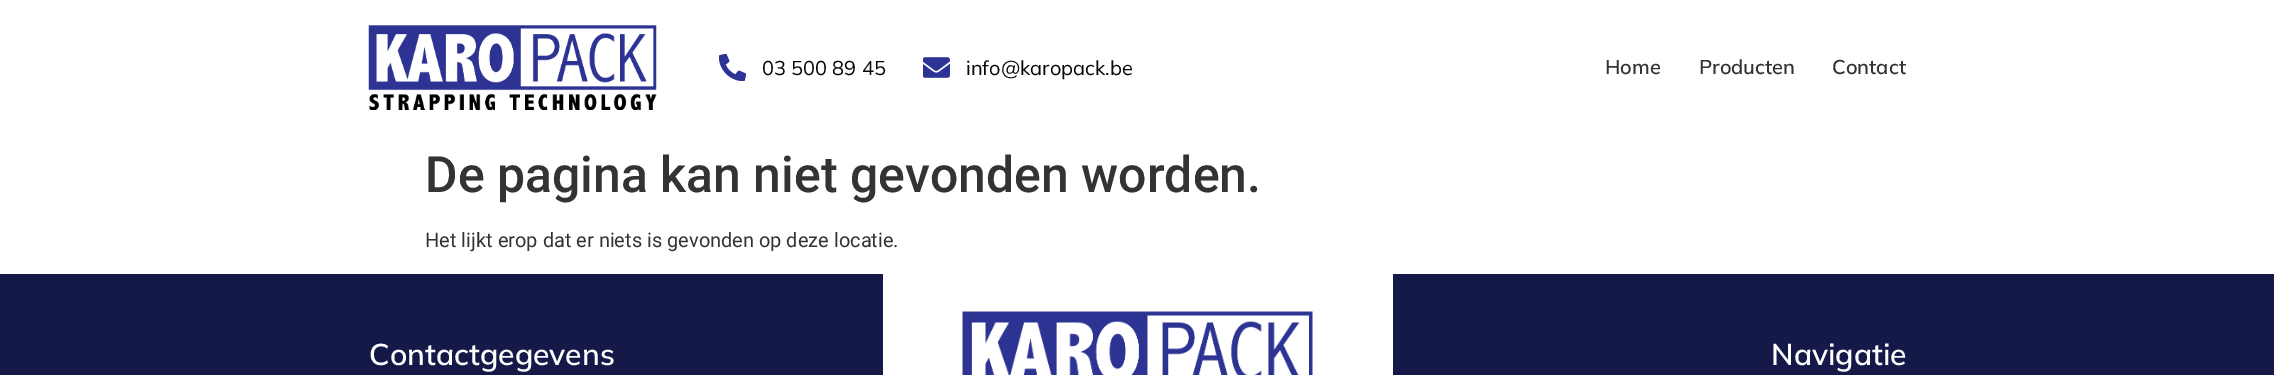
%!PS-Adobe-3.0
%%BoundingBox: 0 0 2274 375
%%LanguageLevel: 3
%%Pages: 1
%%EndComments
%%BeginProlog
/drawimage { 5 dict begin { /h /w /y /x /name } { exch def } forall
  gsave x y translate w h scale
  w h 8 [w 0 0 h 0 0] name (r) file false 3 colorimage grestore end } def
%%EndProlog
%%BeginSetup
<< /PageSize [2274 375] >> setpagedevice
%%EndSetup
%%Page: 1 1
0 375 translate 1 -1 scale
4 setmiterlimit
1 setgray
0 0 2274 375 rectfill
(images/1.raw) 368 25 289 85 drawimage
(images/2.raw) 719 54 27 27 drawimage
(images/3.raw) 923 57 27 21 drawimage
0.082 0.098 0.278 setrgbcolor
0 274 2274 101 rectfill
1 setgray
883 274 510 101 rectfill
(images/4.raw) 962 311 351 64 drawimage
/Mulish-Regular [20 0 0 -20 0 0] selectfont
0.024 setgray
762 75 moveto (03 500 89 45) show
966 75 moveto (info@karopack.be) show
/Mulish-SemiBold [20 0 0 -20 0 0] selectfont
0.2 setgray
1605 74 moveto (Home) show
1699 74 moveto (Producten) show
1832 74 moveto (Contact) show
/Roboto-Medium [50 0 0 -50 0 0] selectfont
425 192 moveto (De pagina kan niet gevonden worden.) show
/Roboto-Regular [20 0 0 -20 0 0] selectfont
425 247 moveto (Het lijkt erop dat er niets is gevonden op deze locatie.) show
/Mulish-SemiBold [30 0 0 -30 0 0] selectfont
1 setgray
369 365 moveto (Contactgegevens) show
1771 365 moveto (Navigatie) show
showpage
%%EOF
